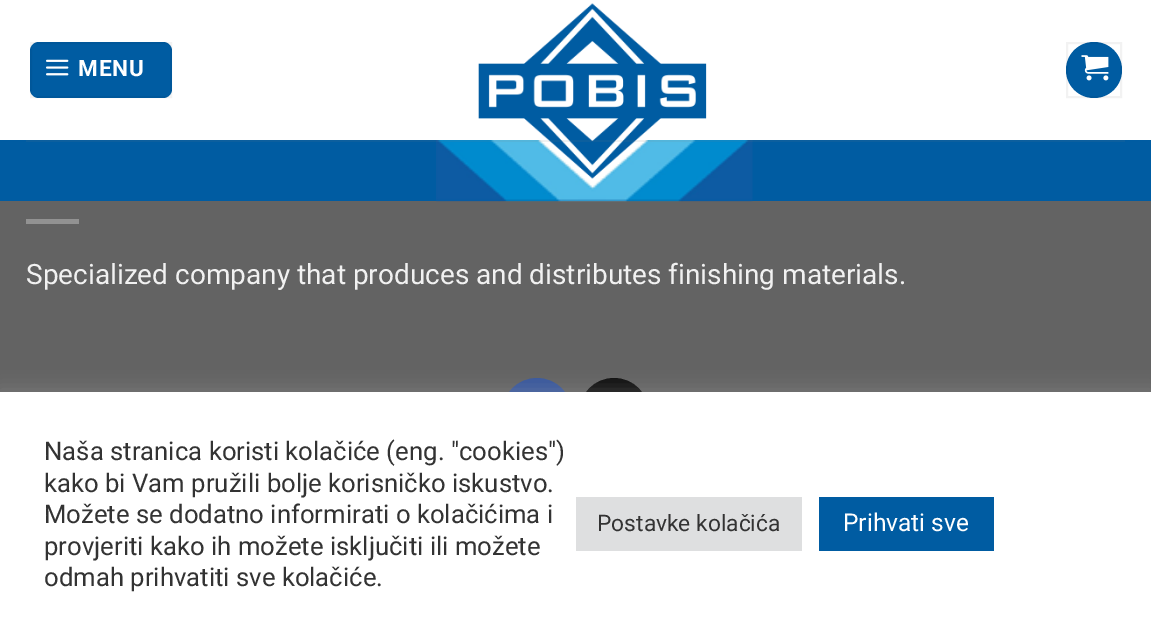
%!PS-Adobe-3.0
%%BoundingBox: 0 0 1151 636
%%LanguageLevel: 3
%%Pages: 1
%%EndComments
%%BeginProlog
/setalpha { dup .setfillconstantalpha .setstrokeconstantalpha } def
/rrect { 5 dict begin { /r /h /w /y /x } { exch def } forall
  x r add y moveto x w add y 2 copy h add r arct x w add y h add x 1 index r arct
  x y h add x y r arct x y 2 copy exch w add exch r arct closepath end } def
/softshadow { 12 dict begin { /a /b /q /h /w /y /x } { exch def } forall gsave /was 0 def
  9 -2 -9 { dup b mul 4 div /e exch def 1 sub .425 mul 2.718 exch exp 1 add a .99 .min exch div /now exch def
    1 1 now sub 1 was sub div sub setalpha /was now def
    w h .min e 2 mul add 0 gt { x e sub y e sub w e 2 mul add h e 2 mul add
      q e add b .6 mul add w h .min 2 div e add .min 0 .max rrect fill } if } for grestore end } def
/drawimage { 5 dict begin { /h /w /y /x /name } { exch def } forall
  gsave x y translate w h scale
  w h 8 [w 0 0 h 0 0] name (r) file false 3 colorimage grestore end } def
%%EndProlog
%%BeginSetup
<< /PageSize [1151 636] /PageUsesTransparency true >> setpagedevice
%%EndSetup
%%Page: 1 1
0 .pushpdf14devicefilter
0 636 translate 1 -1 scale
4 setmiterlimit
0.388 setgray
0 0 1151 636 rectfill
1 setgray
0 0 1151 140 rectfill
0 0.361 0.635 setrgbcolor
30 42 142 56 9 rrect fill
0.05 setalpha
0 setgray
2 setlinewidth
31 43 140 54 rectstroke
1 setalpha
(images/1.raw) 46 59 23 17 drawimage
0 0.361 0.635 setrgbcolor
0 140 1151 61 rectfill
(images/3.raw) 436 140 317 62 drawimage
(images/2.raw) 478 3 229 176 drawimage
newpath 1094 70 28 0 360 arc closepath fill
0.05 setalpha
0 setgray
1067 43 54 54 rectstroke
1 setalpha
(images/4.raw) 1081 55 28 26 drawimage
0.1 setalpha
0.467 setgray
26 140 1099 2 rectfill
1 setalpha
0.573 setgray
26 219 53 5 rectfill
0.227 0.345 0.616 setrgbcolor
503 379 68 70 34 rrect gsave fill grestore
stroke
0.067 setgray
580 379 68 70 34 rrect gsave fill grestore
stroke
0.675 0.671 0.671 setrgbcolor
0 390 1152 245 0 9 0.3 softshadow
1 setgray
0 392 1151 244 rectfill
0.871 0.875 0.878 setrgbcolor
576 497 226 54 rectfill
0 0.361 0.635 setrgbcolor
819 497 175 54 rectfill
/Roboto-Bold [22.5 0 0 -22.5 0 0] selectfont
1 setgray
78 76 moveto 1 0 (MENU) ashow
/Roboto-Regular [28 0 0 -28 0 0] selectfont
0.945 setgray
26 284 moveto (Specialized company that produces and distributes finishing materials.) show
/Roboto-Regular [25.7 0 0 -25.7 0 0] selectfont
0.2 setgray
44 460 moveto (Naša stranica koristi kolačiće \(eng. "cookies"\)) show
44 492 moveto (kako bi Vam pružili bolje korisničko iskustvo.) show
44 523 moveto (Možete se dodatno informirati o kolačićima i) show
44 555 moveto (provjeriti kako ih možete isključiti ili možete) show
44 586 moveto (odmah prihvatiti sve kolačiće.) show
/Roboto-Regular [22.75 0 0 -22.75 0 0] selectfont
597 531 moveto (Postavke kolačića) show
/Roboto-Regular [24.5 0 0 -24.5 0 0] selectfont
1 setgray
843 531 moveto (Prihvati sve) show
.poppdf14devicefilter showpage
%%EOF
